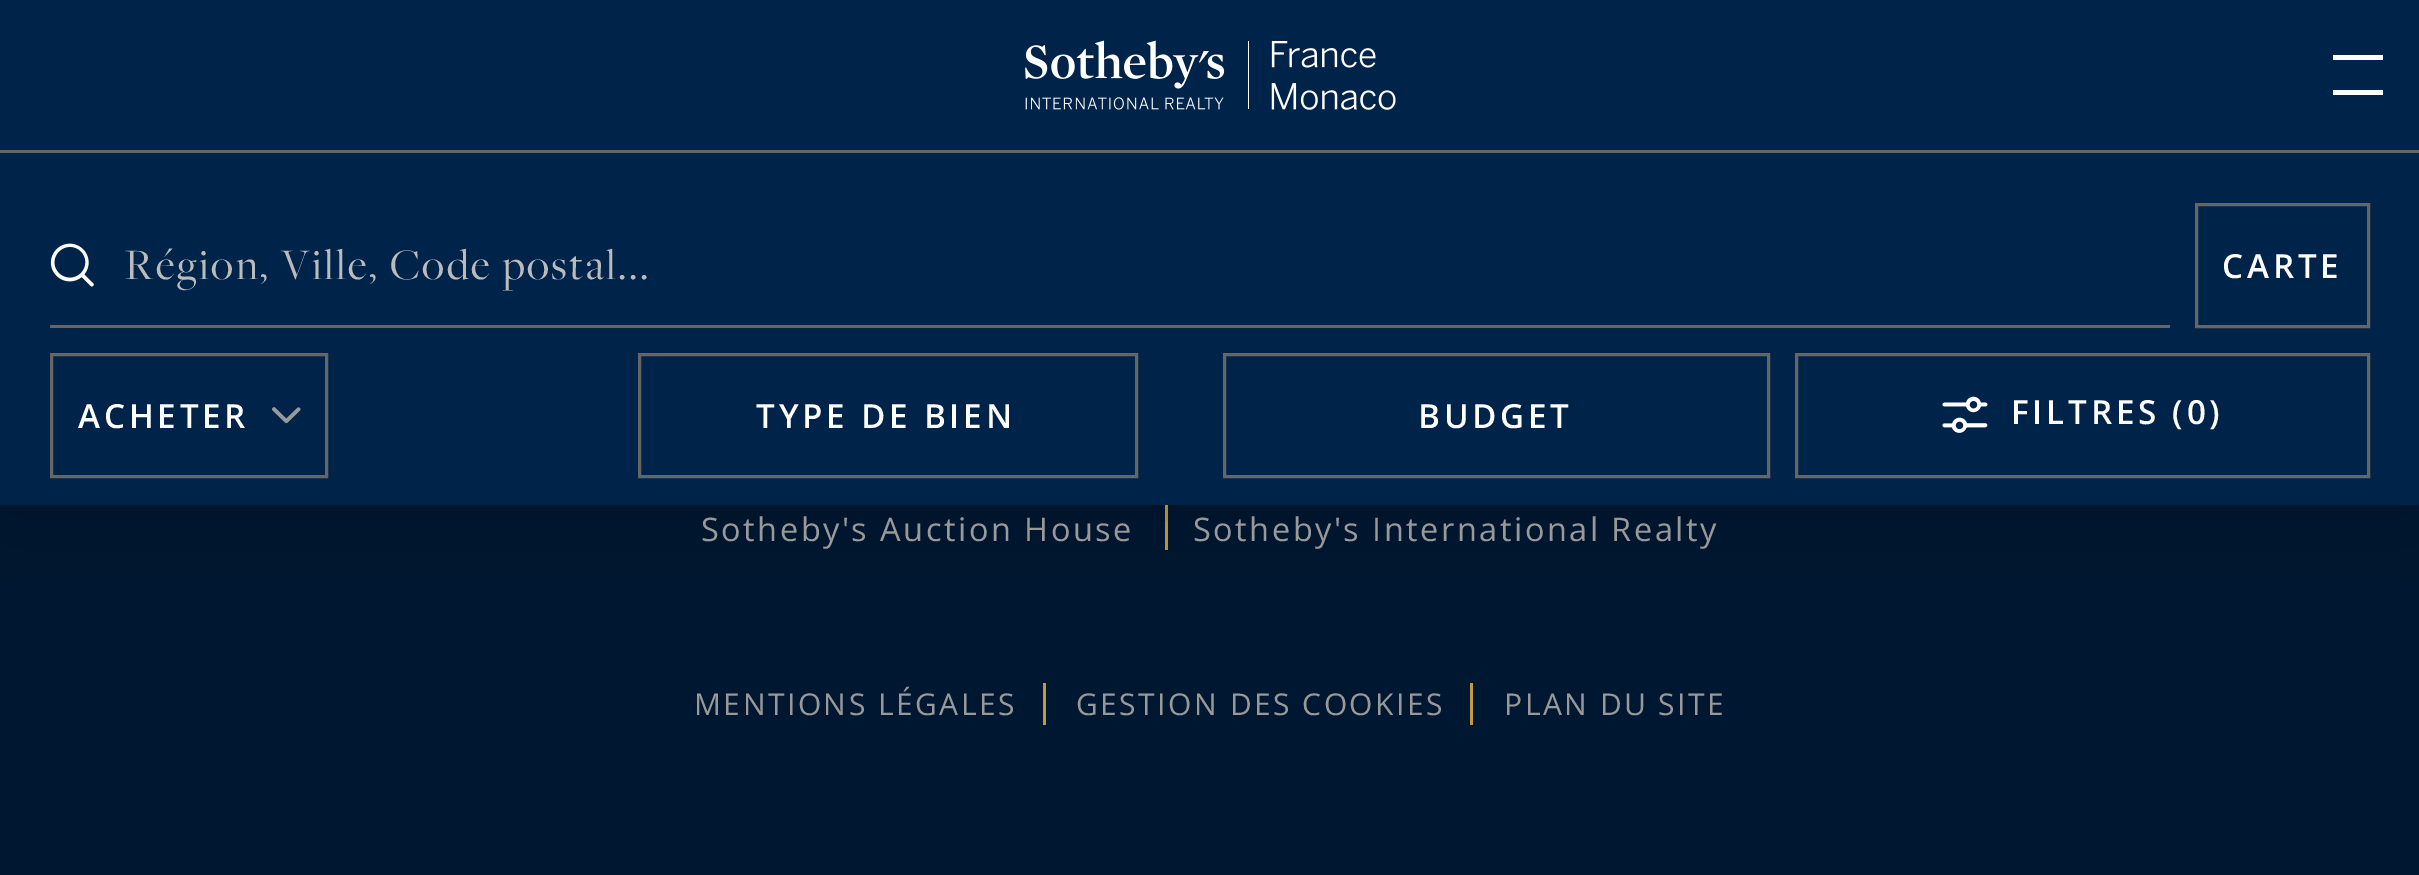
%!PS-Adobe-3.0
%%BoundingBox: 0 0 2419 875
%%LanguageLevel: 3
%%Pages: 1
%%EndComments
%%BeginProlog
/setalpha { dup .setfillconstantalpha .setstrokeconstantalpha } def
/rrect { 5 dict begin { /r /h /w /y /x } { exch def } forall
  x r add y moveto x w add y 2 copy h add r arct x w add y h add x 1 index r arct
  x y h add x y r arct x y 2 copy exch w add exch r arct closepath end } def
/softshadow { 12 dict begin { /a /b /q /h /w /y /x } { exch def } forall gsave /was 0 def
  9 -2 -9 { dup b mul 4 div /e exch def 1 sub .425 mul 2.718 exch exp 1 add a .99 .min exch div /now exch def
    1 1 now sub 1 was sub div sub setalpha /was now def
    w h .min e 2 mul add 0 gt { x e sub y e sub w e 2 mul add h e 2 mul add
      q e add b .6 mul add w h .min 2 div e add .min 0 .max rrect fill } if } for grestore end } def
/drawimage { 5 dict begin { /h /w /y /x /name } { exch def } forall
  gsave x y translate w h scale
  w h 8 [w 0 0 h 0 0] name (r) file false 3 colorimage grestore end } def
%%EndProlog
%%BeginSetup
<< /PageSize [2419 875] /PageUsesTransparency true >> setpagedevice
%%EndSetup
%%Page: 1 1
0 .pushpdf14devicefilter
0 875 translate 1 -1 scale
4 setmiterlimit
0 0.09 0.192 setrgbcolor
0 0 2419 875 rectfill
0.761 0.608 0.251 setrgbcolor
1165 505 3 45 rectfill
1043 683 3 42 rectfill
1470 683 3 42 rectfill
0 setgray
0 150 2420 355 0 62.5 0.2 softshadow
0 0.137 0.286 setrgbcolor
0 0 2419 150 rectfill
(images/1.raw) 1025 40 371 70 drawimage
1 setgray
2333 55 50 5 rectfill
2333 90 50 5 rectfill
0 0.137 0.286 setrgbcolor
0 153 2419 352 rectfill
0.4 setgray
0 150 2419 3 rectfill
(images/2.raw) 50 243 44 44 drawimage
50 325 2120 3 rectfill
3 setlinewidth
2196.5 204.5 172 122 rectstroke
51.5 354.5 275 122 rectstroke
(images/3.raw) 272 407 29 17 drawimage
639.5 354.5 497 122 rectstroke
1224.5 354.5 544 122 rectstroke
1796.5 354.5 572 122 rectstroke
(images/4.raw) 1942 396 46 37 drawimage
/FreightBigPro-Regular [45 0 0 -45 0 0] selectfont
0.733 setgray
125 279 moveto 2.5 0 (Région, Ville, Code postal...) ashow
/OpenSans-SemiBold [33.25 0 0 -33.25 0 0] selectfont
1 setgray
2222 278 moveto 3.75 0 (CARTE) ashow
78 428 moveto 3.75 0 (ACHETER) ashow
756 428 moveto 3.75 0 (TYPE DE BIEN) ashow
1418 428 moveto 3.75 0 (BUDGET) ashow
2011 424 moveto 3.75 0 (FILTRES \(0\)) ashow
/OpenSans-Regular [32.5 0 0 -32.5 0 0] selectfont
0.6 setgray
701 541 moveto 2.5 0 (Sotheby's Auction House) ashow
1193 541 moveto 2.5 0 (Sotheby's International Realty) ashow
/OpenSans-Regular [30 0 0 -30 0 0] selectfont
694 715 moveto 2.5 0 (MENTIONS LÉGALES) ashow
1076 715 moveto 2.5 0 (GESTION DES COOKIES) ashow
1504 715 moveto 2.5 0 (PLAN DU SITE) ashow
.poppdf14devicefilter showpage
%%EOF
